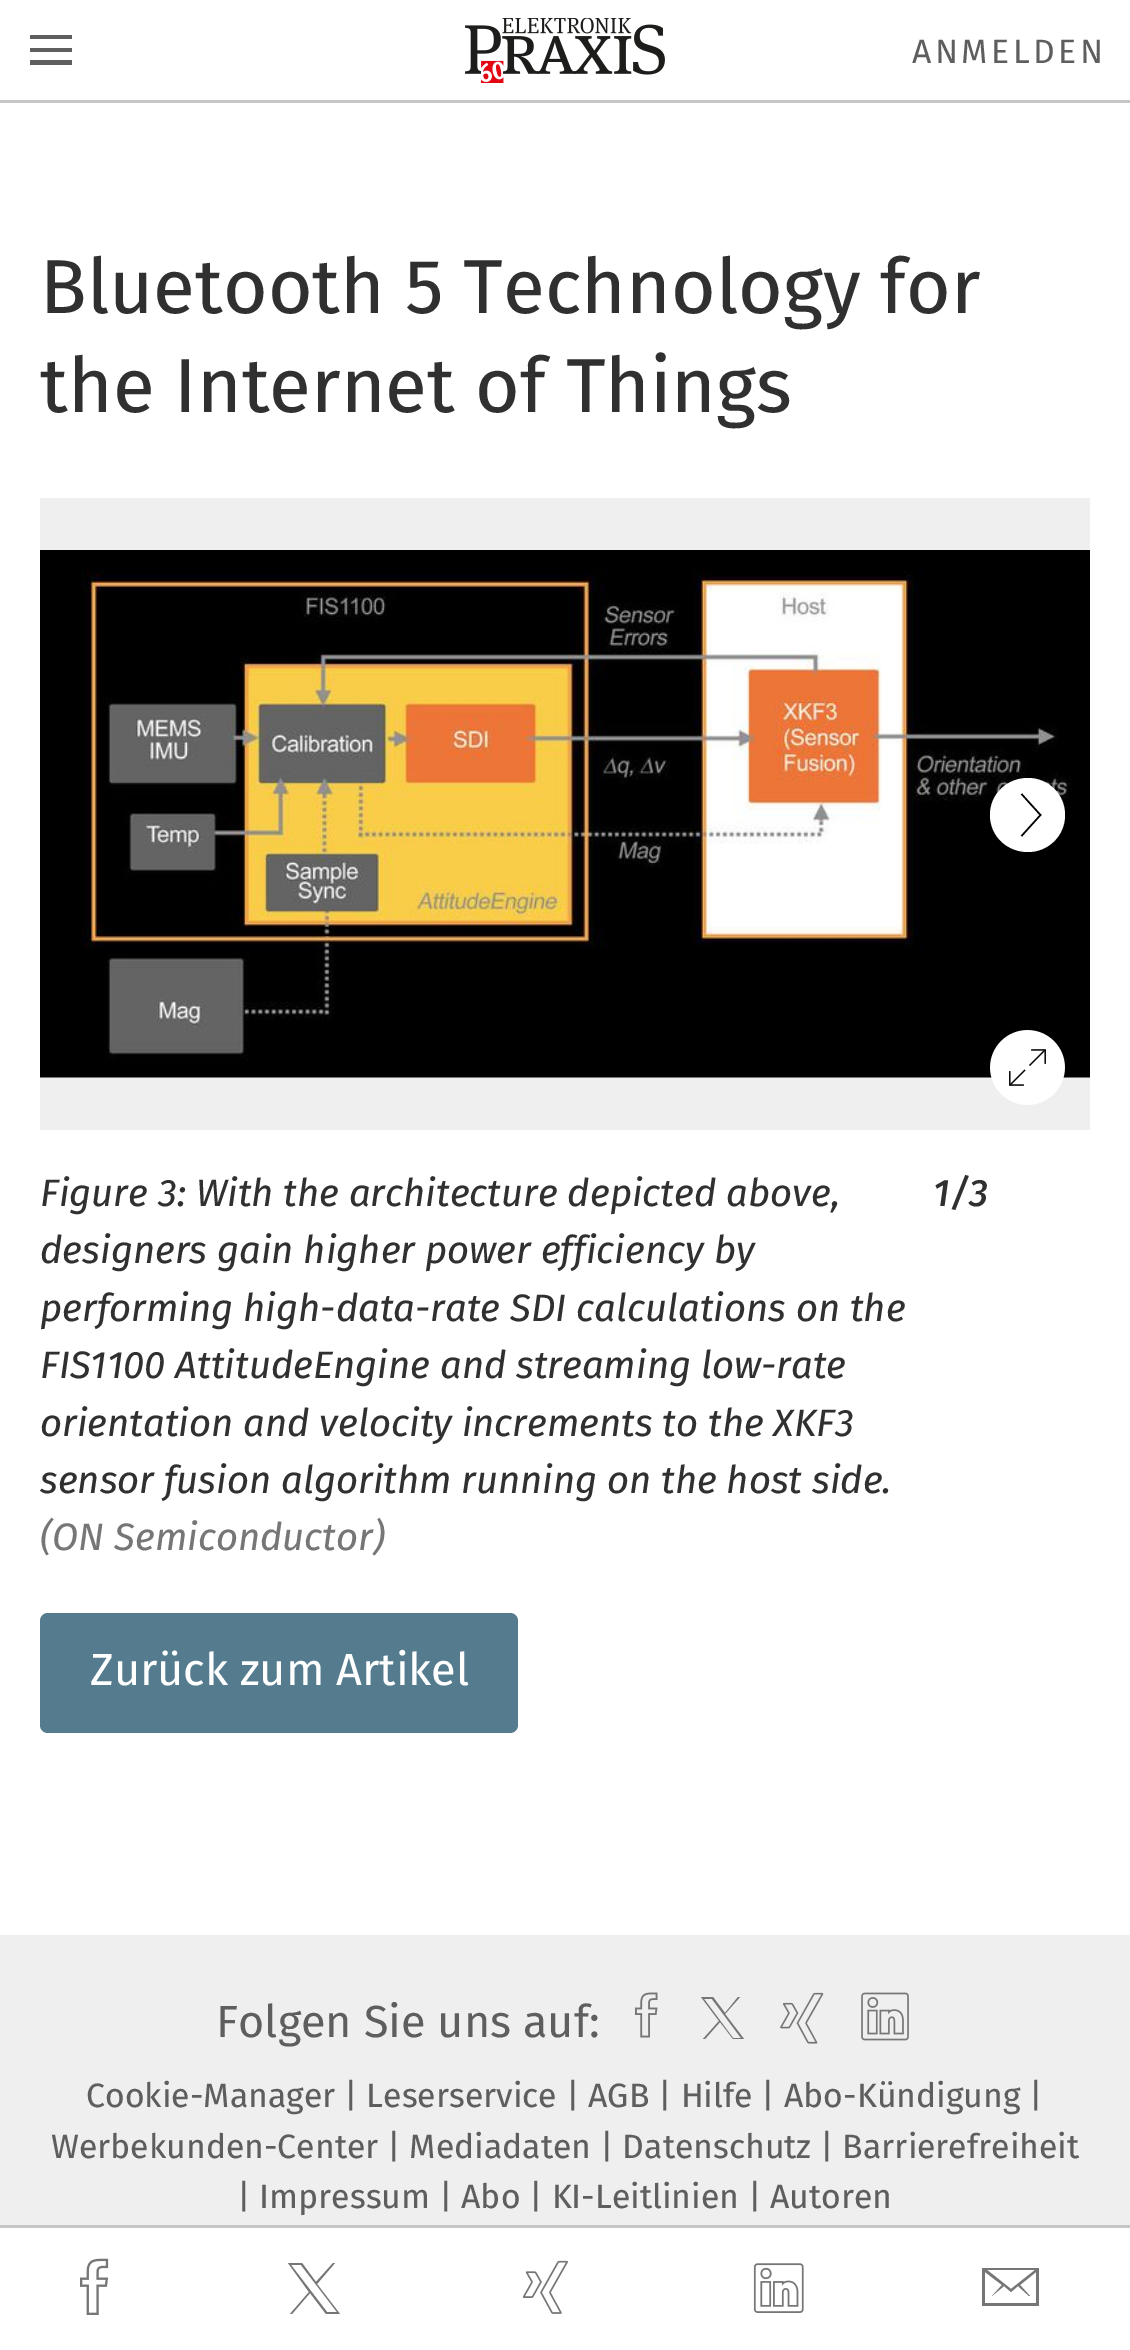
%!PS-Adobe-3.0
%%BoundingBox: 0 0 1130 2350
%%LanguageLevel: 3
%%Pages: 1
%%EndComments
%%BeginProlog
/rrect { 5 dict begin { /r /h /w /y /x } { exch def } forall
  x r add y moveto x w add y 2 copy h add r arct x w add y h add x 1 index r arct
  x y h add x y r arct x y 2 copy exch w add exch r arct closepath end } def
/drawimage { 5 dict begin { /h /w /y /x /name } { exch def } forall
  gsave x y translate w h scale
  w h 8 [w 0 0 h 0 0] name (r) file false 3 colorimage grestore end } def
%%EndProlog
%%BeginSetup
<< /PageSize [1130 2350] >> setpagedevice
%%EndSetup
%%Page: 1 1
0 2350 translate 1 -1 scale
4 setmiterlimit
1 setgray
0 0 1130 2350 rectfill
0.776 setgray
0 100 1130 3 rectfill
0.369 setgray
newpath 30 52 moveto 30 48 lineto 72 48 lineto 72 52 lineto closepath 30 39 moveto 30 35 lineto 72 35 lineto 72 39 lineto closepath 30 65 moveto 30 60 lineto 72 60 lineto 72 65 lineto closepath fill
(images/1.raw) 465 18 200 65 drawimage
0.937 setgray
40 498 1050 632 rectfill
(images/2.raw) 40 550 1050 528 drawimage
1 setgray
newpath 1028 778 moveto 1007 778 990 794 990 815 curveto 990 836 1007 852 1028 852 curveto 1048 852 1065 836 1065 815 curveto 1065 794 1048 778 1028 778 curveto fill
0 setgray
1.5 setlinewidth
newpath 1021.5 836 moveto 1040.5 815 lineto 1021.5 794 lineto stroke
(images/3.raw) 990 1030 75 75 drawimage
0.329 0.486 0.557 setrgbcolor
40 1613 478 120 8 rrect fill
0.776 setgray
0 2225 1130 3 rectfill
(images/4.raw) 80 2258 29 57 drawimage
0.463 setgray
newpath 290 2314 moveto 292 2314 lineto 310 2293 lineto 326 2314 lineto 340 2314 lineto 317 2284 lineto 335 2263 lineto 333 2263 lineto 316 2282 lineto 302 2263 lineto 288 2263 lineto 309 2292 lineto closepath 291 2265 moveto 301 2265 lineto 337 2312 lineto 327 2312 lineto closepath fill
(images/5.raw) 522 2260 46 54 drawimage
(images/6.raw) 753 2263 51 50 drawimage
newpath 982 2268 moveto 1039 2268 lineto 1039 2306 lineto 982 2306 lineto closepath 1011 2289 moveto 1035 2270 lineto 987 2270 lineto closepath 985 2303 moveto 1036 2303 lineto 1036 2272 lineto 1020 2285 lineto 1030 2296 lineto 1029 2296 lineto 1018 2286 lineto 1011 2292 lineto 1004 2286 lineto 992 2296 lineto 1002 2285 lineto 985 2272 lineto closepath fill
0.937 setgray
0 1935 1130 290 rectfill
(images/7.raw) 635 1992 23 46 drawimage
0.463 setgray
newpath 703 2039 moveto 705 2039 lineto 720 2022 lineto 733 2039 lineto 744 2039 lineto 725 2014 lineto 740 1997 lineto 738 1997 lineto 725 2013 lineto 713 1997 lineto 701 1997 lineto 719 2021 lineto closepath 704 1999 moveto 712 1999 lineto 741 2038 lineto 733 2038 lineto closepath fill
(images/8.raw) 780 1992 44 52 drawimage
(images/9.raw) 861 1992 48 49 drawimage
/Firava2-Regular [33.75 0 0 -33.75 0 0] selectfont
0.369 setgray
912 63 moveto 3.5 0 (ANMELDEN) ashow
/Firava-Regular [76.5 0 0 -76.5 0 0] selectfont
0.188 setgray
40 313 moveto (Bluetooth 5 Technology for) show
40 412 moveto (the Internet of Things) show
/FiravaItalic-Italic [38.25 0 0 -38.25 0 0] selectfont
40 1206 moveto (Figure 3: With the architecture depicted above,) show
40 1263 moveto (designers gain higher power efficiency by) show
40 1321 moveto (performing high-data-rate SDI calculations on the) show
40 1378 moveto (FIS1100 AttitudeEngine and streaming low-rate) show
40 1436 moveto (orientation and velocity increments to the XKF3) show
40 1493 moveto (sensor fusion algorithm running on the host side.) show
0.463 setgray
40 1550 moveto (\(ON Semiconductor\)) show
/FiravaItalic-MediumItalic [38.25 0 0 -38.25 0 0] selectfont
0.188 setgray
933 1206 moveto (1/3) show
/Firava-Regular [45 0 0 -45 0 0] selectfont
1 setgray
90 1685 moveto (Zurück zum Artikel) show
/Firava2-Regular [45 0 0 -45 0 0] selectfont
0.369 setgray
216 2037 moveto (Folgen Sie uns auf:) show
/Firava-Regular [33.75 0 0 -33.75 0 0] selectfont
86 2107 moveto (Cookie-Manager | Leserservice | AGB | Hilfe | Abo-Kündigung |) show
51 2158 moveto (Werbekunden-Center | Mediadaten | Datenschutz | Barrierefreiheit) show
237 2208 moveto (| Impressum | Abo | KI-Leitlinien | Autoren) show
showpage
%%EOF
